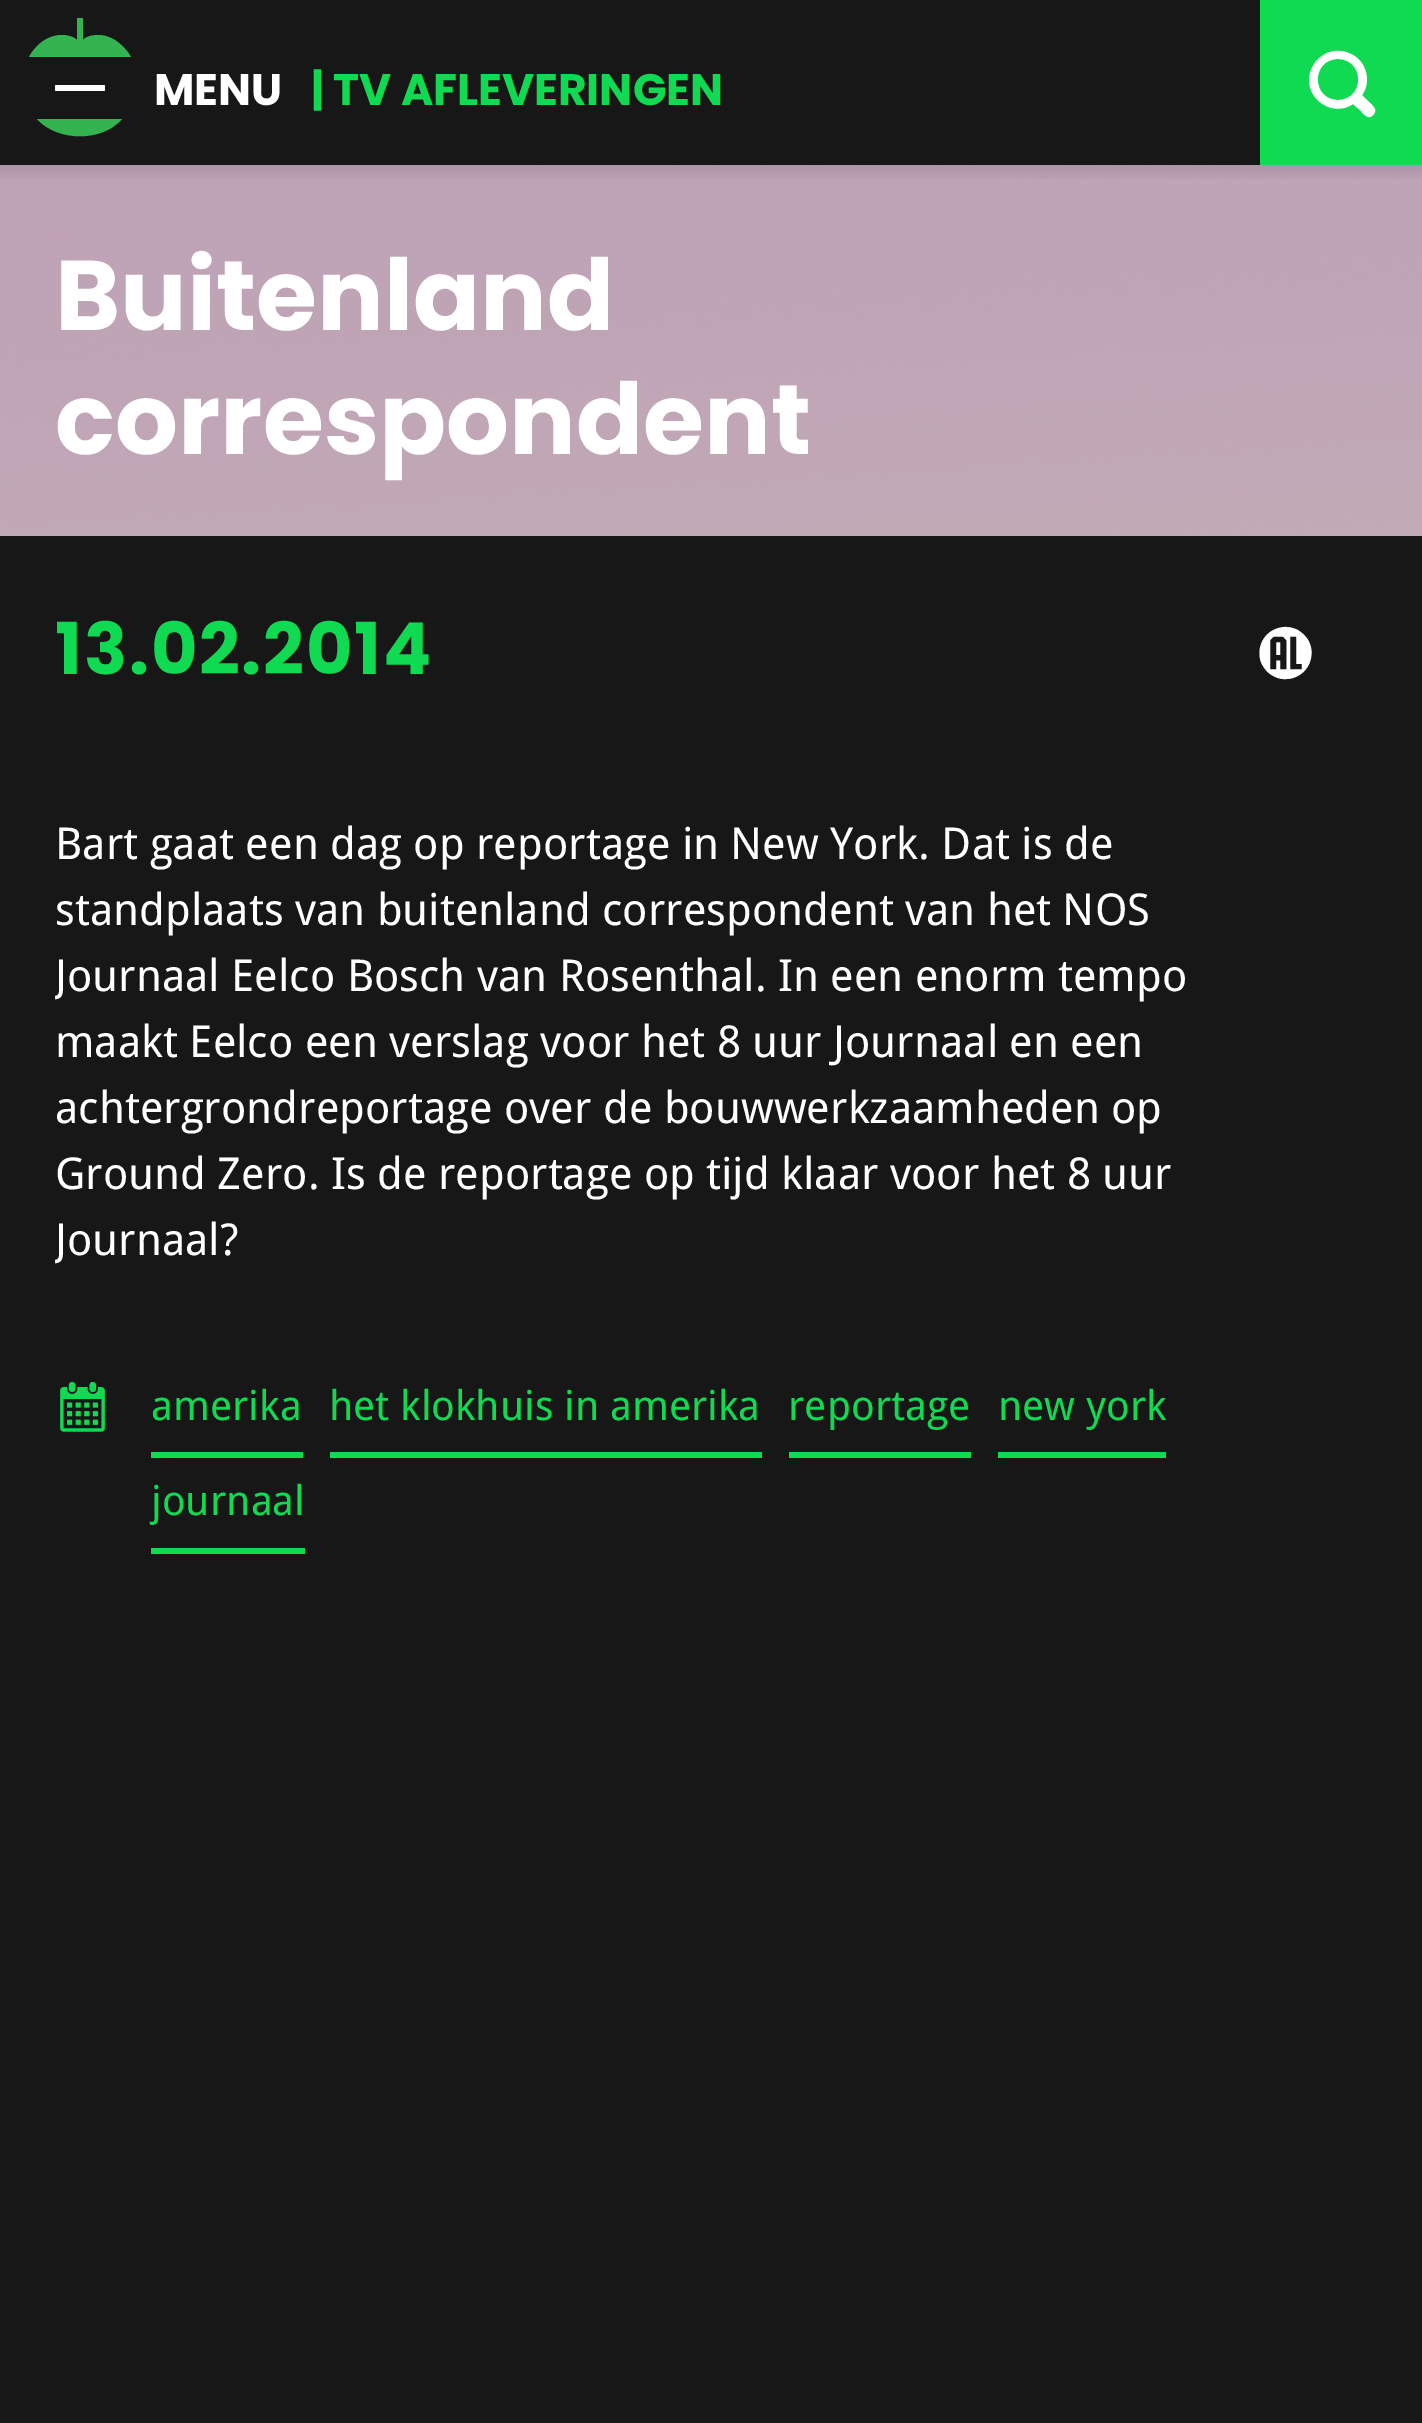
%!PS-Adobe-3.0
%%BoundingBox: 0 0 1422 2423
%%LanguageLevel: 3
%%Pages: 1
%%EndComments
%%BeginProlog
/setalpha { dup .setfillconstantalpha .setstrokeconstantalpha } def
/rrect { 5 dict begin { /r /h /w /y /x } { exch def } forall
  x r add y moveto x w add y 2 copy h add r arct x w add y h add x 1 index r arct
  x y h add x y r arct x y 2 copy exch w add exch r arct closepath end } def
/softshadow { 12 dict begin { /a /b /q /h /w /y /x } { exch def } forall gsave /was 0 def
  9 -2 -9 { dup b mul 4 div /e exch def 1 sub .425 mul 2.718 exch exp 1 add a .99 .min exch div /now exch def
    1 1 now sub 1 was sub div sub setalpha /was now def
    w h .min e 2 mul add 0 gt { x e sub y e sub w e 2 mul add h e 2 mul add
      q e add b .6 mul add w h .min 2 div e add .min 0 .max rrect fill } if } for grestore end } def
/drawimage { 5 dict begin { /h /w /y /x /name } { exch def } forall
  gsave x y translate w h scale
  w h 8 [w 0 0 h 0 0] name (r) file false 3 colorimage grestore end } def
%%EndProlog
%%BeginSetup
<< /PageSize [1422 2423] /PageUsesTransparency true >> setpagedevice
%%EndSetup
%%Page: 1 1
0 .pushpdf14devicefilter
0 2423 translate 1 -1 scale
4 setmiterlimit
1 setgray
0 0 1422 2423 rectfill
(images/1.raw) 0 165 1422 371 drawimage
0.09 setgray
0 0 1260 165 rectfill
gsave
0 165 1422 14 rectclip
0 setgray
-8 -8 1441 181 0 7 0.1 softshadow
grestore
0.059 0.855 0.322 setrgbcolor
1260 0 162 165 rectfill
1 setgray
newpath 1373 115 moveto 1369 120 1364 115 1361 111 curveto 1353 104 lineto 1329 120 1298 92 1313 66 curveto 1316 60 1321 56 1327 53 curveto 1334 50 1343 50 1351 54 curveto 1366 61 1372 81 1362 95 curveto 1370 103 lineto 1373 106 1378 110 1373 115 curveto closepath 1338 59 moveto 1311 59 1311 100 1338 100 curveto 1365 100 1365 59 1338 59 curveto closepath fill
0.204 0.706 0.318 setrgbcolor
newpath 37 119 moveto 58 142 102 142 122 119 curveto closepath fill
newpath 29 57 moveto 29 57 40 35 62 35 curveto 62 35 72 35 77 40 curveto 77 18 lineto 83 18 lineto 83 40 lineto 87 35 98 35 98 35 curveto 119 35 131 57 131 57 curveto closepath fill
1 setgray
55 85 50 6 rectfill
0.09 setgray
0 536 1422 1887 rectfill
(images/2.raw) 60 1381 45 51 drawimage
0.059 0.855 0.322 setrgbcolor
151 1452 152 6 rectfill
330 1452 432 6 rectfill
789 1452 182 6 rectfill
998 1452 168 6 rectfill
151 1548 154 6 rectfill
/Poppins-Bold [44 0 0 -44 0 0] selectfont
1 setgray
154 105 moveto (MENU) show
0.059 0.855 0.322 setrgbcolor
311 105 moveto (| TV AFLEVERINGEN) show
/Poppins-Bold [99 0 0 -99 0 0] selectfont
1 setgray
55 330 moveto (Buitenland) show
55 454 moveto (correspondent) show
/Poppins-Bold [71.5 0 0 -71.5 0 0] selectfont
0.059 0.855 0.322 setrgbcolor
55 674 moveto 1.75 0 (13.02.2014) ashow
/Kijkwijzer-Regular [60 0 0 -60 0 0] selectfont
1 setgray
1257 671 moveto (1) show
/DroidSans-Regular [44 0 0 -44 0 0] selectfont
55 859 moveto (Bart gaat een dag op reportage in New York. Dat is de) show
55 925 moveto (standplaats van buitenland correspondent van het NOS) show
gsave
55 814 1260 462 rectclip
55 991 moveto (Journaal Eelco Bosch van Rosenthal. In een enorm tempo) show
grestore
55 1057 moveto (maakt Eelco een verslag voor het 8 uur Journaal en een) show
55 1123 moveto (achtergrondreportage over de bouwwerkzaamheden op) show
55 1189 moveto (Ground Zero. Is de reportage op tijd klaar voor het 8 uur) show
gsave
55 814 1260 462 rectclip
55 1255 moveto (Journaal?) show
grestore
/DroidSans-Regular [41.25 0 0 -41.25 0 0] selectfont
0.059 0.855 0.322 setrgbcolor
151 1420 moveto (amerika) show
329 1420 moveto (het klokhuis in amerika) show
788 1420 moveto (reportage) show
998 1420 moveto (new york) show
151 1515 moveto (journaal) show
.poppdf14devicefilter showpage
%%EOF
